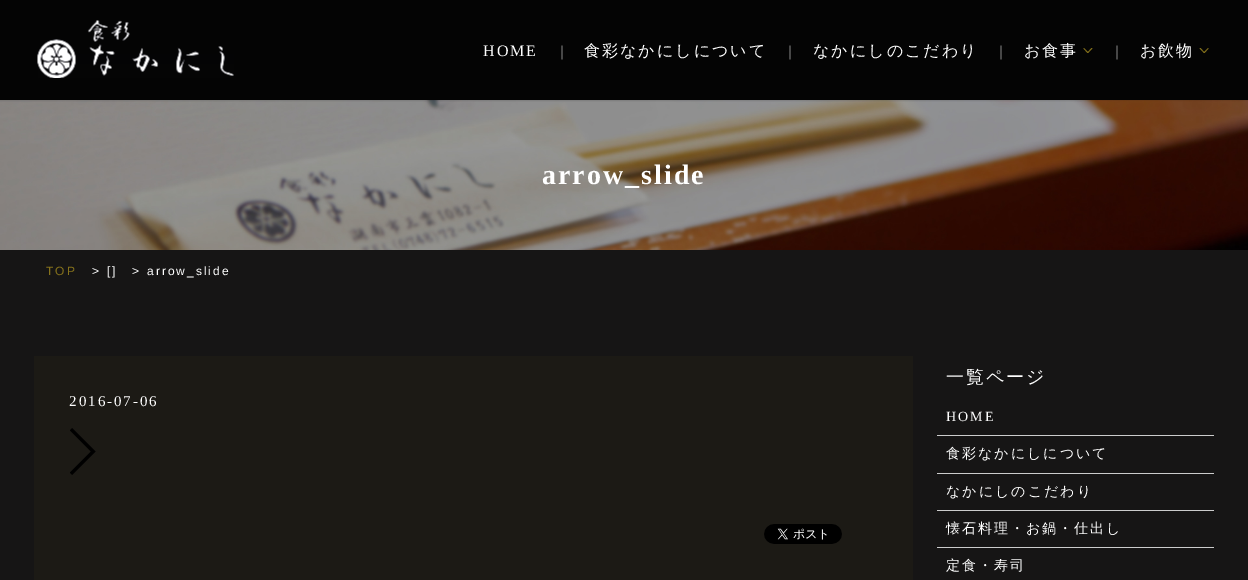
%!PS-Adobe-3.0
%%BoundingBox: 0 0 1248 580
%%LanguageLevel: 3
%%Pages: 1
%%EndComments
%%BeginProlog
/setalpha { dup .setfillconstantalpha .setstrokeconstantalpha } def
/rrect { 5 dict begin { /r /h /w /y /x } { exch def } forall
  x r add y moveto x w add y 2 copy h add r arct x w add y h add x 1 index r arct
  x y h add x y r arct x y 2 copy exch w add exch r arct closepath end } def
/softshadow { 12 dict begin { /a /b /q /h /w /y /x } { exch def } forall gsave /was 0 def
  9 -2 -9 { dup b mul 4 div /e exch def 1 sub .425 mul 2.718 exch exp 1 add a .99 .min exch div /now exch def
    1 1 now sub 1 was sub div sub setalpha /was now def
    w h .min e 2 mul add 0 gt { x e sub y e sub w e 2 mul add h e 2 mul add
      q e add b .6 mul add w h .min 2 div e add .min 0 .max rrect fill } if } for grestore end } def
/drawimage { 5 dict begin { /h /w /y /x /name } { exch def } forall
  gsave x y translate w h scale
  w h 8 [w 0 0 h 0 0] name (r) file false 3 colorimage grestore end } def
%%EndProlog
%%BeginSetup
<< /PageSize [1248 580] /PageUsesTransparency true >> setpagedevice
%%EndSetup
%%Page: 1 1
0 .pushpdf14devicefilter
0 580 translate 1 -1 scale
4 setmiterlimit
0.086 0.082 0.082 setrgbcolor
0 0 1248 580 rectfill
(images/2.raw) 0 100 1248 150 drawimage
0 setgray
0 1 1248 100 0 0.5 0.1 softshadow
0.016 setgray
0 0 1248 100 rectfill
(images/1.raw) 37 20 197 58 drawimage
0.525 0.447 0.106 setrgbcolor
newpath 1087.5 52.5 moveto 1091.5 48 lineto 1092.5 48.5 lineto 1088 53 lineto closepath fill
newpath 1084 48 moveto 1088.5 52.5 lineto 1087.5 53 lineto 1083.5 48.5 lineto closepath fill
newpath 1203.5 52.5 moveto 1208 48 lineto 1208.5 48.5 lineto 1204.5 53 lineto closepath fill
newpath 1200.5 48 moveto 1204.5 52.5 lineto 1204 53 lineto 1199.5 48.5 lineto closepath fill
0.11 0.102 0.082 setrgbcolor
34 356 879 224 rectfill
(images/3.raw) 70 428 26 47 drawimage
(images/4.raw) 764 524 78 20 drawimage
0.8 setgray
937 435 277 1 rectfill
937 473 277 1 rectfill
937 510 277 1 rectfill
937 547 277 1 rectfill
/LiberationSerif-Regular [16 0 0 -16 0 0] selectfont
1 setgray
483 56 moveto 2 0 (HOME) ashow
/WenQuanYiZenHei-Medium [14 0 0 -14 0 0] selectfont
0.51 setgray
555 56 moveto 2 0 (｜) ashow
/WenQuanYiZenHei-Medium [16 0 0 -16 0 0] selectfont
1 setgray
584 56 moveto 2 0 (食彩なかにしについて) ashow
/WenQuanYiZenHei-Medium [14 0 0 -14 0 0] selectfont
0.51 setgray
783 56 moveto 2 0 (｜) ashow
/WenQuanYiZenHei-Medium [16 0 0 -16 0 0] selectfont
1 setgray
813 56 moveto 2 0 (なかにしのこだわり) ashow
/WenQuanYiZenHei-Medium [14 0 0 -14 0 0] selectfont
0.51 setgray
994 56 moveto 2 0 (｜) ashow
/WenQuanYiZenHei-Medium [16 0 0 -16 0 0] selectfont
1 setgray
1024 56 moveto 2 0 (お食事) ashow
/WenQuanYiZenHei-Medium [14 0 0 -14 0 0] selectfont
0.51 setgray
1110 56 moveto 2 0 (｜) ashow
/WenQuanYiZenHei-Medium [16 0 0 -16 0 0] selectfont
1 setgray
1140 56 moveto 2 0 (お飲物) ashow
/LiberationSerif-Bold [28 0 0 -28 0 0] selectfont
542 184 moveto 2 0 (arrow_slide) ashow
/LiberationSans-Regular [12 0 0 -12 0 0] selectfont
0.525 0.447 0.106 setrgbcolor
46 275 moveto 2 0 (TOP) ashow
1 setgray
92 275 moveto 2 0 (>) ashow
107 275 moveto 2 0 ([]) ashow
132 275 moveto 2 0 (>) ashow
147 275 moveto 2 0 (arrow_slide) ashow
/LiberationSerif-Regular [15 0 0 -15 0 0] selectfont
69 406 moveto 2 0 (2016-07-06) ashow
/WenQuanYiZenHei-Medium [18 0 0 -18 0 0] selectfont
946 383 moveto 2 0 (一覧ページ) ashow
/LiberationSerif-Regular [14 0 0 -14 0 0] selectfont
946 421 moveto 2 0 (HOME) ashow
/WenQuanYiZenHei-Medium [14 0 0 -14 0 0] selectfont
946 458 moveto 2 0 (食彩なかにしについて) ashow
946 496 moveto 2 0 (なかにしのこだわり) ashow
946 533 moveto 2 0 (懐石料理・お鍋・仕出し) ashow
946 570 moveto 2 0 (定食・寿司) ashow
.poppdf14devicefilter showpage
%%EOF
